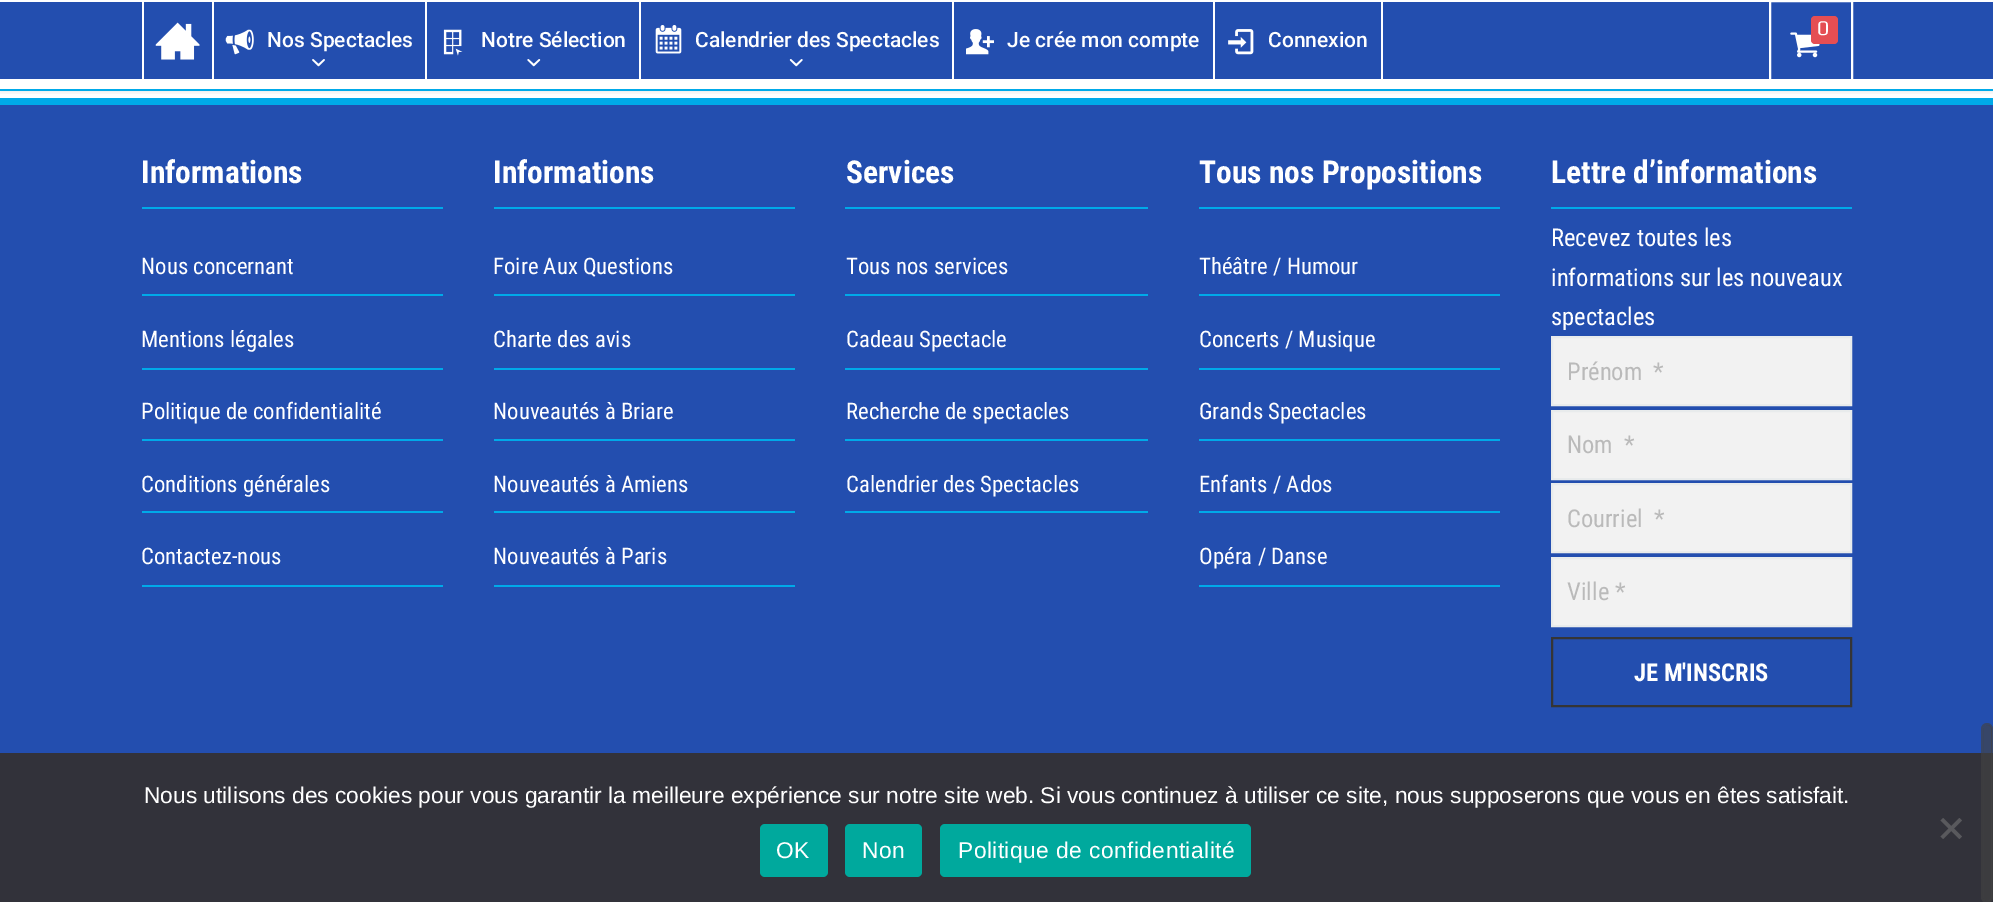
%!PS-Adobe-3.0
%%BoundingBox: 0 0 1993 902
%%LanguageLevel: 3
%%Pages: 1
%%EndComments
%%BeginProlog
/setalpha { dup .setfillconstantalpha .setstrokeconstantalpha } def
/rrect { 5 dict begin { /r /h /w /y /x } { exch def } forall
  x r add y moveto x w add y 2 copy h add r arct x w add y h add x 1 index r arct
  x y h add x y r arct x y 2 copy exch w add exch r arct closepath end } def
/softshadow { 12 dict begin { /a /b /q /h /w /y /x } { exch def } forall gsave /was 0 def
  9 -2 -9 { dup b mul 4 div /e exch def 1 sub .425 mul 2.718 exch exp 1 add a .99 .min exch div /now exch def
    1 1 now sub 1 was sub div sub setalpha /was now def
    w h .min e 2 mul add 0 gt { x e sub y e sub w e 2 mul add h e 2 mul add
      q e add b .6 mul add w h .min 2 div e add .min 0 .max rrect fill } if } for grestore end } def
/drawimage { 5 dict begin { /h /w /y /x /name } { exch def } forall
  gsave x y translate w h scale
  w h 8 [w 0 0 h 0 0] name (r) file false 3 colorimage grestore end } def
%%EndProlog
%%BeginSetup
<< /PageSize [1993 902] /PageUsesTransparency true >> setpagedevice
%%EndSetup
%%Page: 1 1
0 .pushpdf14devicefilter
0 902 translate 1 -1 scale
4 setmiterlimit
1 setgray
0 0 1993 902 rectfill
0 0.667 0.914 setrgbcolor
0 98 1993 7 rectfill
gsave
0 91 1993 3 rectclip
0 setgray
0 0 1993 91 0 3.5 0.1 softshadow
grestore
0 89 1993 2 rectfill
0.137 0.306 0.686 setrgbcolor
0 2 1993 77 rectfill
1 setgray
2 setlinewidth
1770 1 82 79 rectstroke
(images/1.raw) 1790 32 30 26 drawimage
0.898 0.306 0.325 setrgbcolor
1811 16 27 28 4 rrect fill
1 setgray
142 2 2 77 rectfill
(images/2.raw) 155 22 45 38 drawimage
212 2 2 77 rectfill
(images/3.raw) 225 29 29 26 drawimage
(images/4.raw) 312 59 13 8 drawimage
425 2 2 77 rectfill
(images/5.raw) 443 29 20 27 drawimage
(images/6.raw) 527 59 14 8 drawimage
639 2 2 77 rectfill
(images/7.raw) 655 25 27 29 drawimage
(images/8.raw) 789 59 14 8 drawimage
952 2 2 77 rectfill
(images/9.raw) 966 29 28 26 drawimage
1381 2 2 77 rectfill
1213 2 2 77 rectfill
(images/10.raw) 1228 29 26 26 drawimage
0.137 0.306 0.686 setrgbcolor
0 105 1993 648 rectfill
0 0.667 0.914 setrgbcolor
142 207 301 2 rectfill
142 294 301 2 rectfill
142 368 301 2 rectfill
142 439 301 2 rectfill
142 511 301 2 rectfill
142 585 301 2 rectfill
494 207 301 2 rectfill
494 294 301 2 rectfill
494 368 301 2 rectfill
494 439 301 2 rectfill
494 511 301 2 rectfill
494 585 301 2 rectfill
845 207 303 2 rectfill
845 294 303 2 rectfill
845 368 303 2 rectfill
845 439 303 2 rectfill
845 511 303 2 rectfill
1199 207 301 2 rectfill
1199 294 301 2 rectfill
1199 368 301 2 rectfill
1199 439 301 2 rectfill
1199 511 301 2 rectfill
1199 585 301 2 rectfill
1551 207 301 2 rectfill
0.949 setgray
newpath 1552 337 moveto 1851 337 lineto 1851 405 lineto 1552 405 lineto closepath gsave fill grestore
0.91 0.922 0.925 setrgbcolor
stroke
0.949 setgray
newpath 1552 411 moveto 1851 411 lineto 1851 479 lineto 1552 479 lineto closepath gsave fill grestore
0.91 0.922 0.925 setrgbcolor
stroke
0.949 setgray
newpath 1552 484 moveto 1851 484 lineto 1851 552 lineto 1552 552 lineto closepath gsave fill grestore
0.91 0.922 0.925 setrgbcolor
stroke
0.949 setgray
newpath 1552 558 moveto 1851 558 lineto 1851 626 lineto 1552 626 lineto closepath gsave fill grestore
0.91 0.922 0.925 setrgbcolor
stroke
0.208 setgray
1552 638 299 68 rectstroke
0.196 0.196 0.227 setrgbcolor
0 753 1993 149 rectfill
0.349 0.349 0.365 setrgbcolor
newpath 1959.5 818 moveto 1962 820.5 lineto 1943 839 lineto 1940.5 836.5 lineto closepath fill
newpath 1940.5 820.5 moveto 1943 818 lineto 1962 836.5 lineto 1959.5 839 lineto closepath fill
0 0.663 0.616 setrgbcolor
760 824 68 53 5 rrect fill
845 824 77 53 5 rrect fill
940 824 311 53 5 rrect fill
0.65 setalpha
0.259 setgray
1983 725 9 176 4.5 rrect fill
1982 724 10 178 5 rrect stroke
/Play-Regular [21 0 0 -21 0 0] selectfont
1 setalpha
1 setgray
1817 35 moveto (0) show
/Roboto-Medium [21 0 0 -21 0 0] selectfont
267 47 moveto (Nos Spectacles) show
481 47 moveto (Notre Sélection) show
695 47 moveto (Calendrier des Spectacles) show
1007 47 moveto (Je crée mon compte) show
1268 47 moveto (Connexion) show
/RobotoCondensed-Bold [31.5 0 0 -31.5 0 0] selectfont
141 183 moveto (Informations) show
/RobotoCondensed-Regular [22.75 0 0 -22.75 0 0] selectfont
141 274 moveto (Nous concernant) show
141 347 moveto (Mentions légales) show
141 419 moveto (Politique de confidentialité) show
141 492 moveto (Conditions générales) show
141 564 moveto (Contactez-nous) show
/RobotoCondensed-Bold [31.5 0 0 -31.5 0 0] selectfont
493 183 moveto (Informations) show
/RobotoCondensed-Regular [22.75 0 0 -22.75 0 0] selectfont
493 274 moveto (Foire Aux Questions) show
493 347 moveto (Charte des avis) show
493 419 moveto (Nouveautés à Briare) show
493 492 moveto (Nouveautés à Amiens) show
493 564 moveto (Nouveautés à Paris) show
/RobotoCondensed-Bold [31.5 0 0 -31.5 0 0] selectfont
846 183 moveto (Services) show
/RobotoCondensed-Regular [22.75 0 0 -22.75 0 0] selectfont
846 274 moveto (Tous nos services) show
846 347 moveto (Cadeau Spectacle) show
846 419 moveto (Recherche de spectacles) show
846 492 moveto (Calendrier des Spectacles) show
/RobotoCondensed-Bold [31.5 0 0 -31.5 0 0] selectfont
1199 183 moveto (Tous nos Propositions) show
/RobotoCondensed-Regular [22.75 0 0 -22.75 0 0] selectfont
1199 274 moveto (Théâtre / Humour) show
1199 347 moveto (Concerts / Musique) show
1199 419 moveto (Grands Spectacles) show
1199 492 moveto (Enfants / Ados) show
1199 564 moveto (Opéra / Danse) show
/RobotoCondensed-Bold [31.5 0 0 -31.5 0 0] selectfont
1551 183 moveto (Lettre d’informations) show
/RobotoCondensed-Regular [24.5 0 0 -24.5 0 0] selectfont
1551 246 moveto (Recevez toutes les) show
1551 286 moveto (informations sur les nouveaux) show
1551 325 moveto (spectacles) show
0.729 setgray
1567 380 moveto (Prénom  *) show
1567 453 moveto (Nom  *) show
1567 527 moveto (Courriel  *) show
1567 600 moveto (Ville *) show
/RobotoCondensed-Bold [24.5 0 0 -24.5 0 0] selectfont
1 setgray
1634 681 moveto (JE M'INSCRIS) show
/LiberationSans-Regular [22.75 0 0 -22.75 0 0] selectfont
144 803 moveto (Nous utilisons des cookies pour vous garantir la meilleure expérience sur notre site web. Si vous continuez à utiliser ce site, nous supposerons que vous en êtes satisfait.) show
776 858 moveto 0.45 0 (OK) ashow
862 858 moveto 0.45 0 (Non) ashow
958 858 moveto 0.45 0 (Politique de confidentialité) ashow
.poppdf14devicefilter showpage
%%EOF
